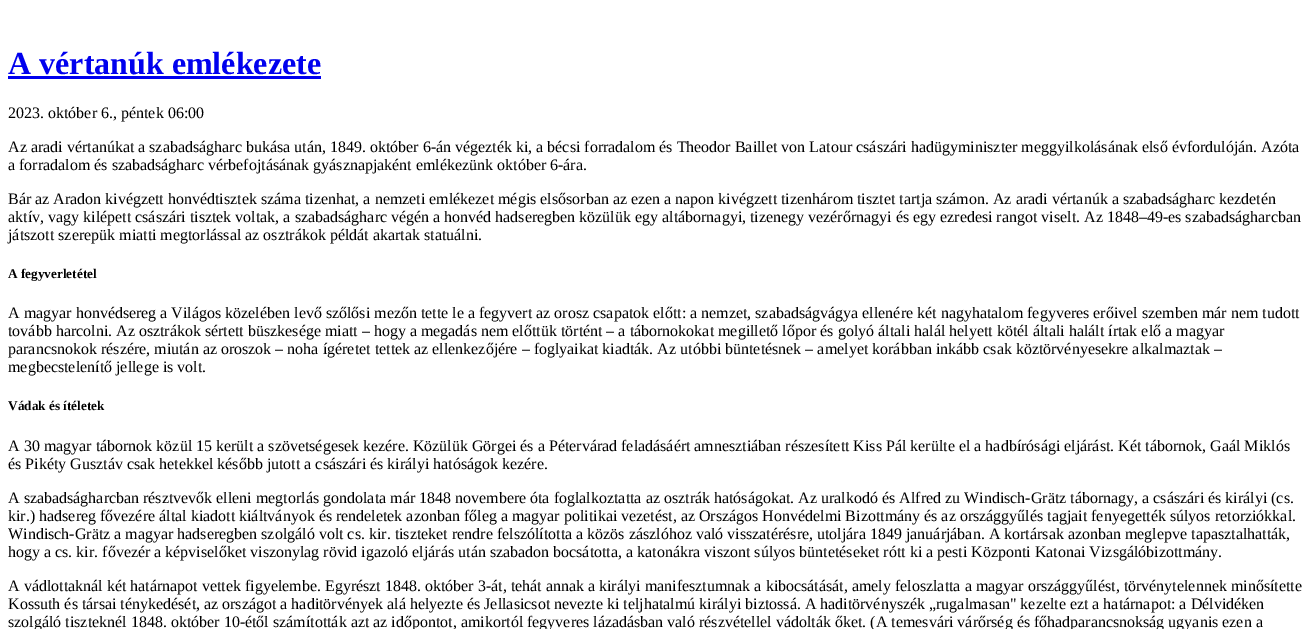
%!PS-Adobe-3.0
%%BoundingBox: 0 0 1312 629
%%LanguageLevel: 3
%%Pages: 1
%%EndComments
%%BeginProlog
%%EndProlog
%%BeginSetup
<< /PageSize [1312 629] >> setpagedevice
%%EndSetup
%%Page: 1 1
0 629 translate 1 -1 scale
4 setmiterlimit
1 setgray
0 0 1312 629 rectfill
0 0 0.933 setrgbcolor
8 76 313 3 rectfill
/LiberationSerif-Bold [32 0 0 -32 0 0] selectfont
8 74 moveto (A vértanúk emlékezete) show
/LiberationSerif-Regular [16 0 0 -16 0 0] selectfont
0 setgray
8 118 moveto (2023. október 6., péntek 06:00) show
8 152 moveto (Az aradi vértanúkat a szabadságharc bukása után, 1849. október 6-án végezték ki, a bécsi forradalom és Theodor Baillet von Latour császári hadügyminiszter meggyilkolásának első évfordulóján. Azóta) show
8 170 moveto (a forradalom és szabadságharc vérbefojtásának gyásznapjaként emlékezünk október 6-ára.) show
8 204 moveto (Bár az Aradon kivégzett honvédtisztek száma tizenhat, a nemzeti emlékezet mégis elsősorban az ezen a napon kivégzett tizenhárom tisztet tartja számon. Az aradi vértanúk a szabadságharc kezdetén) show
8 222 moveto (aktív, vagy kilépett császári tisztek voltak, a szabadságharc végén a honvéd hadseregben közülük egy altábornagyi, tizenegy vezérőrnagyi és egy ezredesi rangot viselt. Az 1848–49-es szabadságharcban) show
8 240 moveto (játszott szerepük miatti megtorlással az osztrákok példát akartak statuálni.) show
/LiberationSerif-Bold [13.25 0 0 -13.25 0 0] selectfont
8 278 moveto (A fegyverletétel) show
/LiberationSerif-Regular [16 0 0 -16 0 0] selectfont
8 318 moveto (A magyar honvédsereg a Világos közelében levő szőlősi mezőn tette le a fegyvert az orosz csapatok előtt: a nemzet, szabadságvágya ellenére két nagyhatalom fegyveres erőivel szemben már nem tudott) show
8 336 moveto (tovább harcolni. Az osztrákok sértett büszkesége miatt – hogy a megadás nem előttük történt – a tábornokokat megillető lőpor és golyó általi halál helyett kötél általi halált írtak elő a magyar) show
8 354 moveto (parancsnokok részére, miután az oroszok – noha ígéretet tettek az ellenkezőjére – foglyaikat kiadták. Az utóbbi büntetésnek – amelyet korábban inkább csak köztörvényesekre alkalmaztak –) show
8 372 moveto (megbecstelenítő jellege is volt.) show
/LiberationSerif-Bold [13.25 0 0 -13.25 0 0] selectfont
8 410 moveto (Vádak és ítéletek) show
/LiberationSerif-Regular [16 0 0 -16 0 0] selectfont
8 451 moveto (A 30 magyar tábornok közül 15 került a szövetségesek kezére. Közülük Görgei és a Pétervárad feladásáért amnesztiában részesített Kiss Pál kerülte el a hadbírósági eljárást. Két tábornok, Gaál Miklós) show
8 469 moveto (és Pikéty Gusztáv csak hetekkel később jutott a császári és királyi hatóságok kezére.) show
8 503 moveto (A szabadságharcban résztvevők elleni megtorlás gondolata már 1848 novembere óta foglalkoztatta az osztrák hatóságokat. Az uralkodó és Alfred zu Windisch-Grätz tábornagy, a császári és királyi \(cs.) show
8 521 moveto (kir.\) hadsereg fővezére által kiadott kiáltványok és rendeletek azonban főleg a magyar politikai vezetést, az Országos Honvédelmi Bizottmány és az országgyűlés tagjait fenyegették súlyos retorziókkal.) show
8 539 moveto (Windisch-Grätz a magyar hadseregben szolgáló volt cs. kir. tiszteket rendre felszólította a közös zászlóhoz való visszatérésre, utoljára 1849 januárjában. A kortársak azonban meglepve tapasztalhatták,) show
8 557 moveto (hogy a cs. kir. fővezér a képviselőket viszonylag rövid igazoló eljárás után szabadon bocsátotta, a katonákra viszont súlyos büntetéseket rótt ki a pesti Központi Katonai Vizsgálóbizottmány.) show
8 591 moveto (A vádlottaknál két határnapot vettek figyelembe. Egyrészt 1848. október 3-át, tehát annak a királyi manifesztumnak a kibocsátását, amely feloszlatta a magyar országgyűlést, törvénytelennek minősítette) show
8 609 moveto (Kossuth és társai ténykedését, az országot a haditörvények alá helyezte és Jellasicsot nevezte ki teljhatalmú királyi biztossá. A haditörvényszék „rugalmasan" kezelte ezt a határnapot: a Délvidéken) show
8 627 moveto (szolgáló tiszteknél 1848. október 10-étől számították azt az időpontot, amikortól fegyveres lázadásban való részvétellel vádolták őket. \(A temesvári várőrség és főhadparancsnokság ugyanis ezen a) show
showpage
%%EOF
